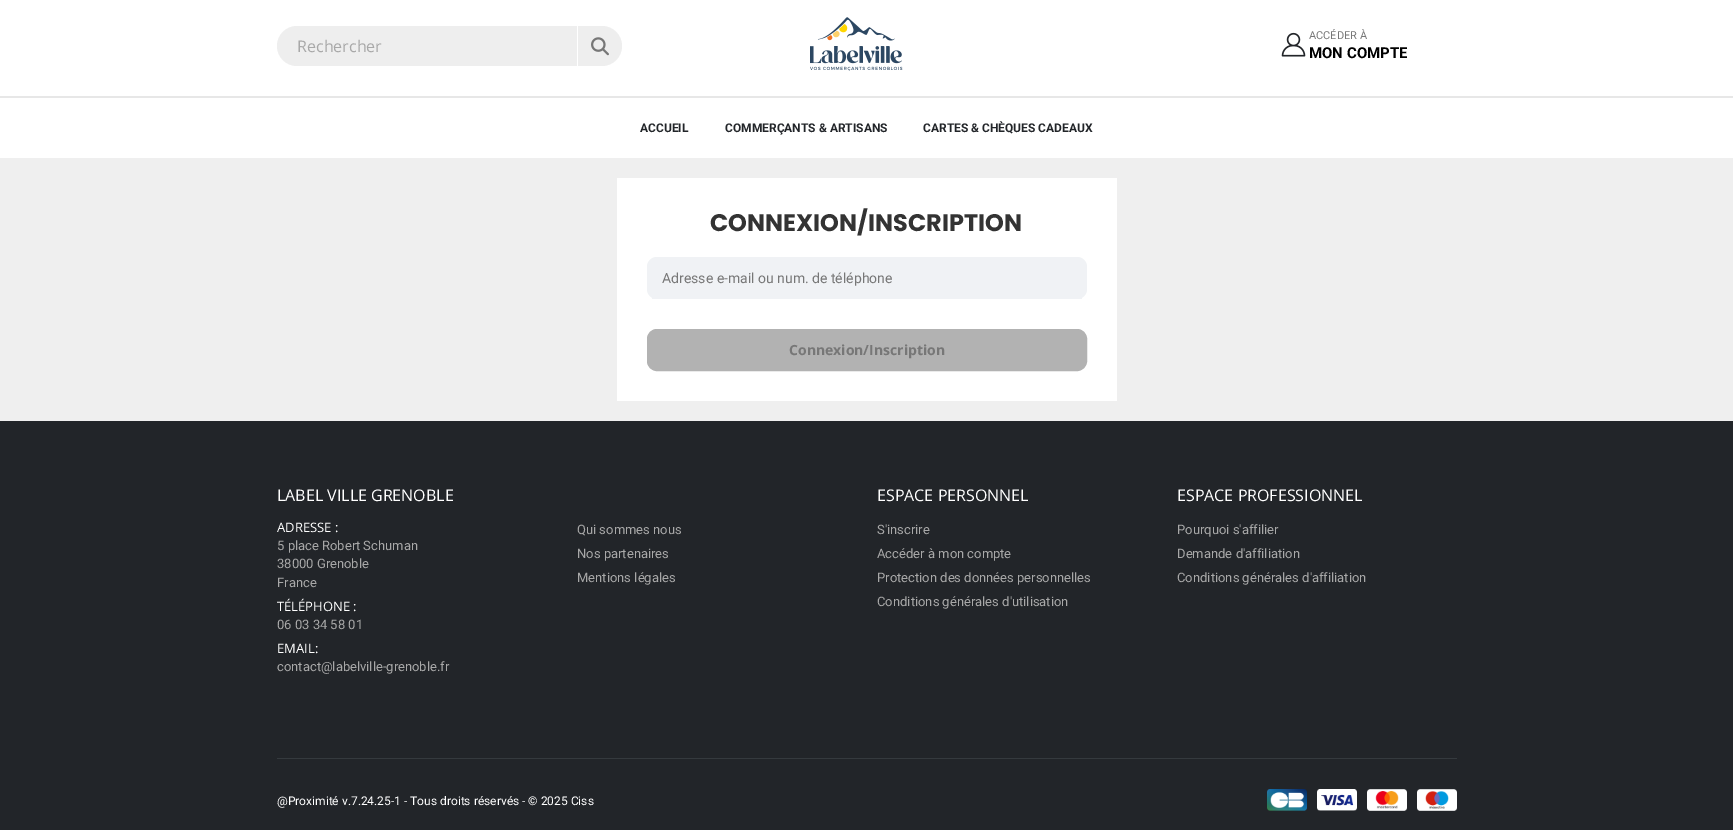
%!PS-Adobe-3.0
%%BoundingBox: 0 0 1733 830
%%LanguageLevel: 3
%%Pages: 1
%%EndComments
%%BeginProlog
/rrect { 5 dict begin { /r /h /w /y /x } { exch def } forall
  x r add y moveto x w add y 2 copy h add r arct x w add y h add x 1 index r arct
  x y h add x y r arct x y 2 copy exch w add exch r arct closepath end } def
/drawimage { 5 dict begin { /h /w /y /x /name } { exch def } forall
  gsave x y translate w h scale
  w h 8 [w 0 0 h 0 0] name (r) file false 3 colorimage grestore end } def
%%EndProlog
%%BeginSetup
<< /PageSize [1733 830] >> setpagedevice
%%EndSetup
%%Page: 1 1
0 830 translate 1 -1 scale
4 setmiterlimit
1 setgray
0 0 1733 830 rectfill
0.933 setgray
newpath 297 26 moveto 577 26 lineto 577 66 lineto 297 66 lineto 286 66 277 57 277 46 curveto 277 35 286 26 297 26 curveto closepath fill
newpath 577 26 moveto 602 26 lineto 613 26 622 35 622 46 curveto 622 57 613 66 602 66 curveto 577 66 lineto closepath fill
1 setgray
577 26 1 40 rectfill
(images/1.raw) 591 37 18 19 drawimage
(images/2.raw) 810 17 93 54 drawimage
(images/3.raw) 1281 32 25 25 drawimage
0.906 setgray
0 96 1733 2 rectfill
0.937 setgray
0 158 1733 263 rectfill
1 setgray
617 178 500 223 rectfill
0.941 0.949 0.961 setrgbcolor
647 257 440 42 10 rrect fill
652 298 430 1 rectfill
0.698 setgray
647.5 329.5 439 41 9.5 rrect gsave fill grestore
stroke
0.133 0.145 0.161 setrgbcolor
0 421 1733 409 rectfill
0.208 0.227 0.243 setrgbcolor
277 758 1180 1 rectfill
(images/4.raw) 1267 789 40 22 drawimage
(images/5.raw) 1317 789 40 22 drawimage
(images/6.raw) 1367 789 40 22 drawimage
(images/7.raw) 1417 789 40 22 drawimage
/OpenSans-Regular [16 0 0 -16 0 0] selectfont
0.659 setgray
297 52 moveto (Rechercher) show
/Roboto-Regular [11 0 0 -11 0 0] selectfont
0.467 setgray
1309 39 moveto (ACCÉDER À) show
/Roboto-Bold [15 0 0 -15 0 0] selectfont
0 setgray
1309 58 moveto (MON COMPTE) show
/Roboto-Bold [12 0 0 -12 0 0] selectfont
0.133 0.145 0.161 setrgbcolor
640 132 moveto (ACCUEIL) show
725 132 moveto (COMMERÇANTS & ARTISANS) show
923 132 moveto (CARTES & CHÈQUES CADEAUX) show
/Poppins-Bold [24 0 0 -24 0 0] selectfont
0.2 setgray
710 231 moveto (CONNEXION/INSCRIPTION) show
/Roboto-Regular [14 0 0 -14 0 0] selectfont
0.467 setgray
662 283 moveto (Adresse e-mail ou num. de téléphone) show
/OpenSans-Bold [14 0 0 -14 0 0] selectfont
789 355 moveto (Connexion/Inscription) show
/OpenSans-Regular [16 0 0 -16 0 0] selectfont
1 setgray
277 501 moveto (LABEL VILLE GRENOBLE) show
/OpenSans-Regular [13 0 0 -13 0 0] selectfont
277 532 moveto (ADRESSE :) show
/Roboto-Regular [13 0 0 -13 0 0] selectfont
0.659 setgray
277 550 moveto (5 place Robert Schuman) show
277 568 moveto (38000 Grenoble) show
277 587 moveto (France) show
/OpenSans-Regular [13 0 0 -13 0 0] selectfont
1 setgray
277 611 moveto (TÉLÉPHONE :) show
/Roboto-Regular [13 0 0 -13 0 0] selectfont
0.659 setgray
277 629 moveto (06 03 34 58 01) show
/OpenSans-Regular [13 0 0 -13 0 0] selectfont
1 setgray
277 653 moveto (EMAIL:) show
/Roboto-Regular [13 0 0 -13 0 0] selectfont
0.659 setgray
277 671 moveto (contact@labelville-grenoble.fr) show
577 534 moveto (Qui sommes nous) show
577 558 moveto (Nos partenaires) show
577 582 moveto (Mentions légales) show
/OpenSans-Regular [16 0 0 -16 0 0] selectfont
1 setgray
877 501 moveto (ESPACE PERSONNEL) show
/Roboto-Regular [13 0 0 -13 0 0] selectfont
0.659 setgray
877 534 moveto (S'inscrire) show
877 558 moveto (Accéder à mon compte) show
877 582 moveto (Protection des données personnelles) show
877 606 moveto (Conditions générales d'utilisation) show
/OpenSans-Regular [16 0 0 -16 0 0] selectfont
1 setgray
1177 501 moveto (ESPACE PROFESSIONNEL) show
/Roboto-Regular [13 0 0 -13 0 0] selectfont
0.659 setgray
1177 534 moveto (Pourquoi s'affilier) show
1177 558 moveto (Demande d'affiliation) show
1177 582 moveto (Conditions générales d'affiliation) show
/Roboto-Regular [12 0 0 -12 0 0] selectfont
1 setgray
277 805 moveto (@Proximité v.7.24.25-1 - Tous droits réservés - © 2025 Ciss) show
showpage
%%EOF
